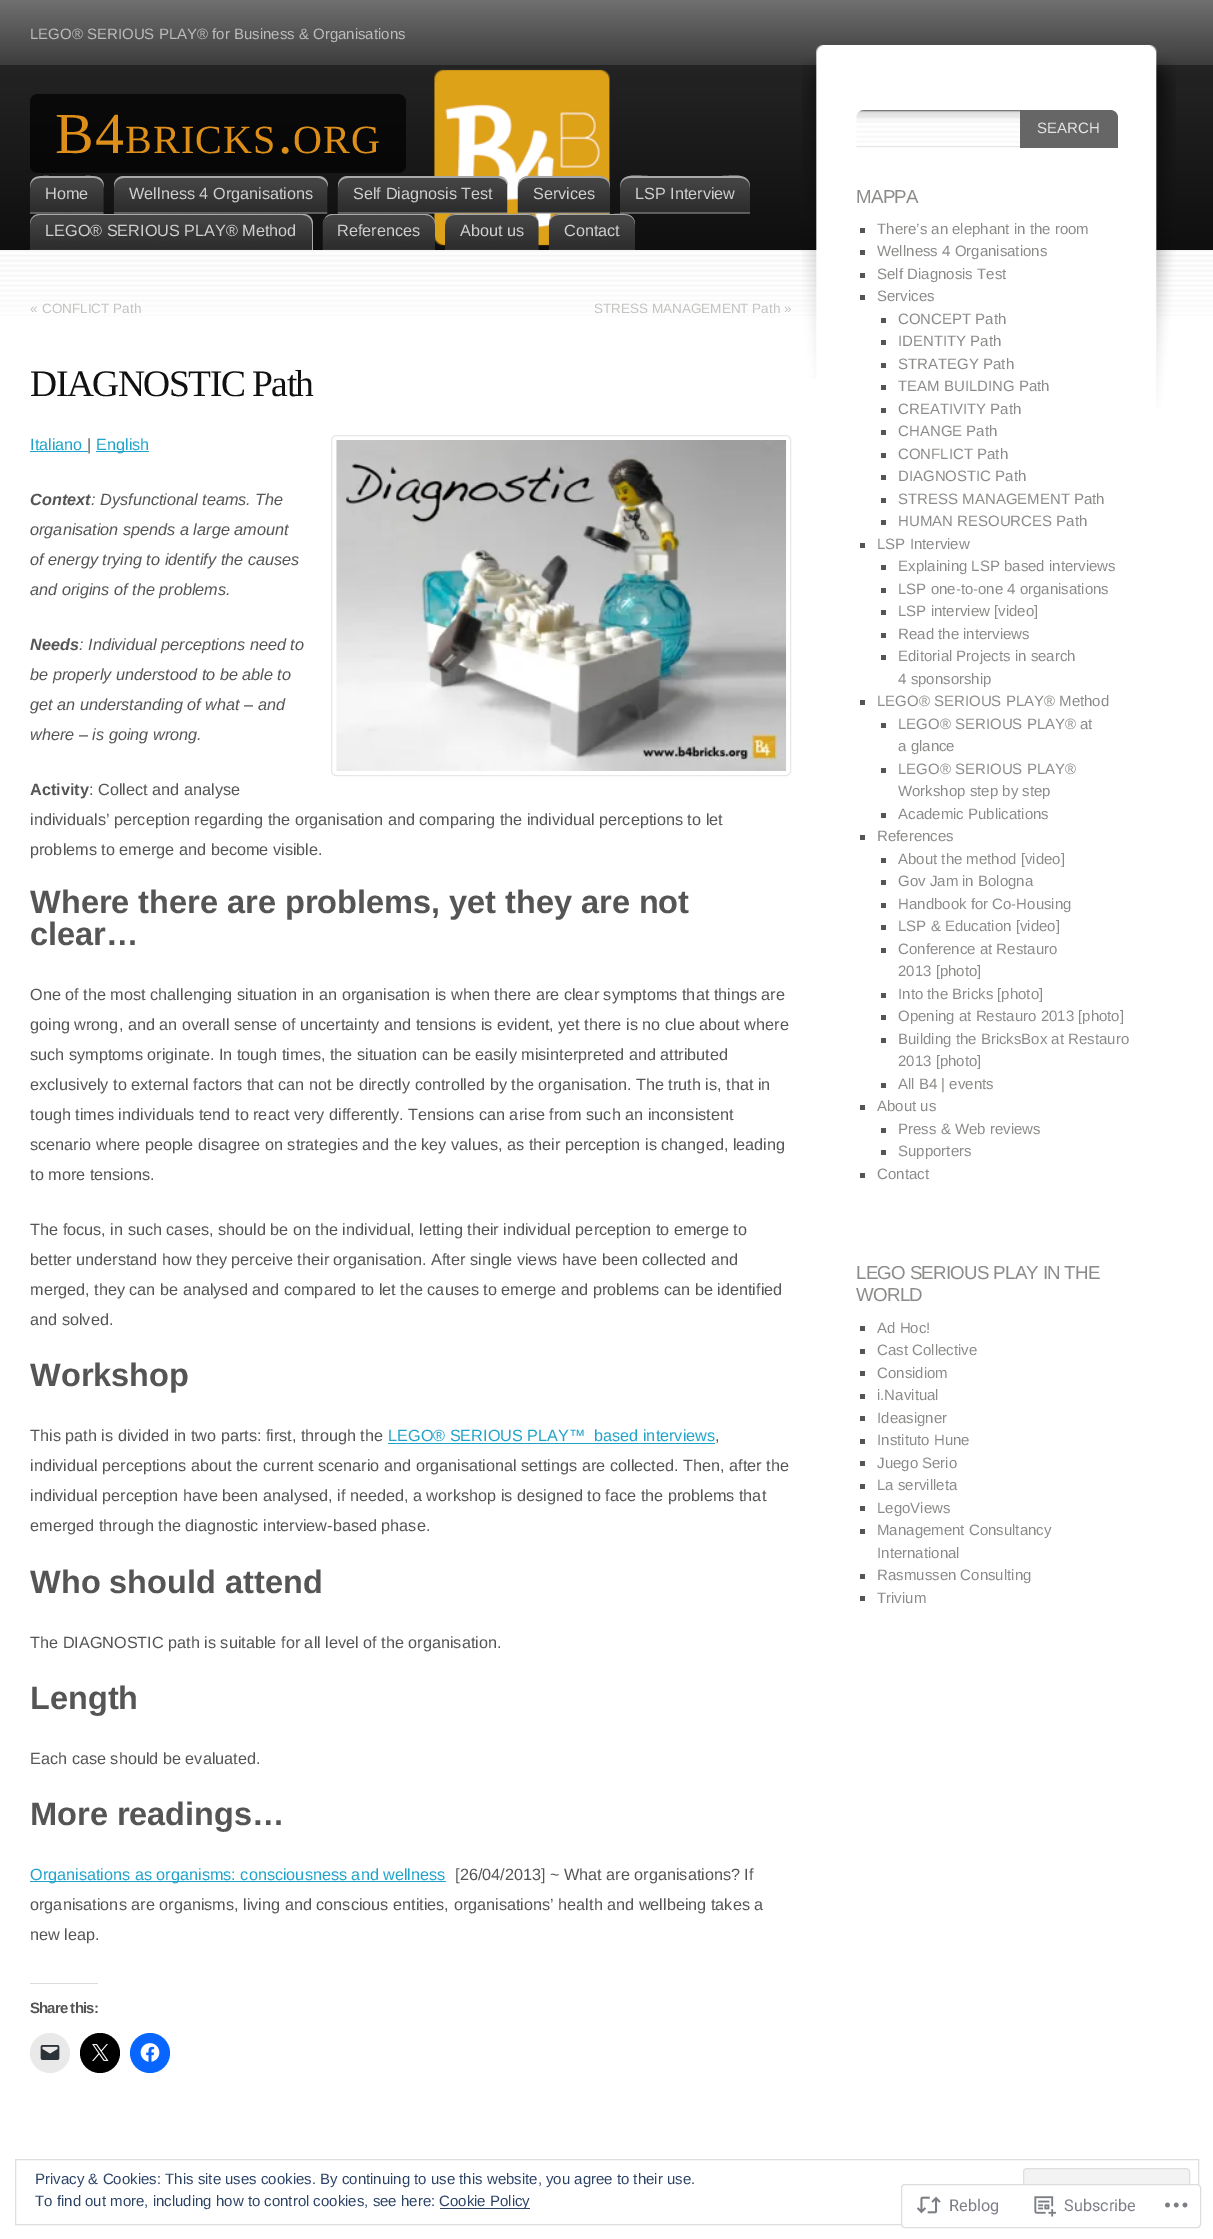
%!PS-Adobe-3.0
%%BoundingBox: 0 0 1213 2239
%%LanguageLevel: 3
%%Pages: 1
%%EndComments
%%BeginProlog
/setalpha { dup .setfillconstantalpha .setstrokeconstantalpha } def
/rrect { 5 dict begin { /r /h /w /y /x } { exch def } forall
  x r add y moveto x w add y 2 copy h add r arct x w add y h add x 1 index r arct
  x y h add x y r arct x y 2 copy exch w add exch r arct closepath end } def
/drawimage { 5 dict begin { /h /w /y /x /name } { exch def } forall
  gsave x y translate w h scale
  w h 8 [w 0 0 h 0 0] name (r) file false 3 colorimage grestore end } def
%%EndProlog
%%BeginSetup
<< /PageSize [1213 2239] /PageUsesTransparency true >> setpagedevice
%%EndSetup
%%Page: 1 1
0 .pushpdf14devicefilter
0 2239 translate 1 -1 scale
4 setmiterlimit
1 setgray
0 0 1213 2239 rectfill
(images/1.raw) 0 250 1213 66 drawimage
gsave newpath 0 0 moveto 1213 0 lineto 1213 250 lineto 0 250 lineto closepath clip newpath
<< /ShadingType 2 /ColorSpace /DeviceRGB /Coords [0 0 0 250] /Extend [true true] /Function << /FunctionType 3 /Domain [0 1] /Functions [<< /FunctionType 2 /Domain [0 1] /C0 [0.439 0.439 0.439] /C1 [0.239 0.239 0.239] /N 1 >> << /FunctionType 2 /Domain [0 1] /C0 [0.141 0.141 0.141] /C1 [0.059 0.059 0.059] /N 1 >>] /Bounds [0.26] /Encode [0 1 0 1] >> >> shfill grestore
(images/2.raw) 434 69 176 177 drawimage
0.7 setalpha
0 setgray
30 94 376 79 8 rrect fill
1 setalpha
(images/3.raw) 30 176 74 38 drawimage
0.667 setgray
newpath 40 178 moveto 94 178 lineto 99 178 104 182 104 188 curveto 104 175 95 176 85 176 curveto 49 176 lineto 39 176 30 175 30 188 curveto 30 182 34 178 40 178 curveto closepath fill
(images/4.raw) 113 176 215 38 drawimage
newpath 124 178 moveto 318 178 lineto 323 178 328 182 328 188 curveto 328 186 lineto 328 180 324 176 318 176 curveto 124 176 lineto 118 176 114 180 114 186 curveto 114 188 lineto 114 182 118 178 124 178 curveto closepath fill
(images/5.raw) 337 176 171 38 drawimage
newpath 348 178 moveto 498 178 lineto 503 178 508 182 508 188 curveto 508 186 lineto 508 180 504 176 498 176 curveto 348 176 lineto 342 176 338 180 338 186 curveto 338 188 lineto 338 182 342 178 348 178 curveto closepath fill
(images/6.raw) 517 176 93 38 drawimage
newpath 528 178 moveto 600 178 lineto 606 178 610 182 610 188 curveto 610 174 599 176 588 176 curveto 540 176 lineto 529 176 518 174 518 188 curveto 518 182 522 178 528 178 curveto closepath fill
(images/7.raw) 620 176 130 38 drawimage
newpath 630 178 moveto 740 178 lineto 746 178 750 182 750 188 curveto 750 172 734 176 722 176 curveto 648 176 lineto 636 176 620 172 620 188 curveto 620 182 624 178 630 178 curveto closepath fill
(images/8.raw) 30 214 283 36 drawimage
newpath 40 215 moveto 302 215 lineto 308 215 312 219 312 225 curveto 312 250 lineto 313 250 lineto 313 224 lineto 313 218 309 214 303 214 curveto 40 214 lineto 34 214 30 218 30 224 curveto 30 225 lineto 30 219 34 215 40 215 curveto closepath fill
(images/9.raw) 322 214 113 36 drawimage
newpath 332 215 moveto 425 215 lineto 431 215 435 219 435 225 curveto 435 224 lineto 435 218 431 214 425 214 curveto 333 214 lineto 330 214 327 215 325 218 curveto 327 216 330 215 332 215 curveto closepath fill
(images/10.raw) 445 213 94 37 drawimage
newpath 455 215 moveto 529 215 lineto 534 215 539 219 539 225 curveto 539 212 526 214 517 214 curveto 467 214 lineto 458 214 445 212 445 225 curveto 445 219 449 215 455 215 curveto closepath fill
(images/11.raw) 548 213 87 37 drawimage
newpath 559 215 moveto 625 215 lineto 631 215 635 219 635 225 curveto 635 212 623 214 614 214 curveto 570 214 lineto 561 214 549 212 549 225 curveto 549 219 553 215 559 215 curveto closepath fill
0.125 0.639 0.792 setrgbcolor
30 451 58 1 rectfill
96 451 53 1 rectfill
0.906 0.91 0.902 setrgbcolor
331.5 435.5 459 340 4.5 rrect stroke
(images/12.raw) 336 440 451 331 drawimage
0.125 0.639 0.792 setrgbcolor
388 1443 327 1 rectfill
30 1881 416 1 rectfill
0.863 0.863 0.871 setrgbcolor
30 1983 68 1 rectfill
0.914 setgray
newpath 50 2053 20 0 360 arc closepath fill
(images/13.raw) 40 2045 20 15 drawimage
0 setgray
newpath 100 2053 20 0 360 arc closepath fill
(images/14.raw) 92 2044 17 17 drawimage
0.031 0.4 1 setrgbcolor
newpath 150 2053 20 0 360 arc closepath fill
(images/15.raw) 140 2043 20 19 drawimage
(images/16.raw) 802 45 29 334 drawimage
(images/17.raw) 831 45 345 363 drawimage
(images/18.raw) 856 110 257 38 drawimage
0.4 setgray
newpath 1020 110 moveto 1110 110 lineto 1114.5 110 1118 113.5 1118 118 curveto 1118 148 lineto 1020 148 lineto closepath fill
0.333 setgray
860 228 5 5 rectfill
860 250 5 5 rectfill
860 273 5 5 rectfill
860 295 5 5 rectfill
881 318 5 5 rectfill
881 340 5 5 rectfill
881 363 5 5 rectfill
881 385 5 5 rectfill
881 408 5 5 rectfill
881 430 5 5 rectfill
881 453 5 5 rectfill
881 475 5 5 rectfill
881 498 5 5 rectfill
881 520 5 5 rectfill
860 543 5 5 rectfill
881 565 5 5 rectfill
881 588 5 5 rectfill
881 610 5 5 rectfill
881 633 5 5 rectfill
881 655 5 5 rectfill
860 700 5 5 rectfill
881 723 5 5 rectfill
881 768 5 5 rectfill
881 813 5 5 rectfill
860 835 5 5 rectfill
881 858 5 5 rectfill
881 880 5 5 rectfill
881 903 5 5 rectfill
881 925 5 5 rectfill
881 948 5 5 rectfill
881 993 5 5 rectfill
881 1015 5 5 rectfill
881 1038 5 5 rectfill
881 1083 5 5 rectfill
860 1105 5 5 rectfill
881 1128 5 5 rectfill
881 1150 5 5 rectfill
860 1173 5 5 rectfill
860 1326 5 5 rectfill
860 1349 5 5 rectfill
860 1371 5 5 rectfill
860 1394 5 5 rectfill
860 1416 5 5 rectfill
860 1439 5 5 rectfill
860 1461 5 5 rectfill
860 1484 5 5 rectfill
860 1506 5 5 rectfill
860 1529 5 5 rectfill
860 1574 5 5 rectfill
860 1596 5 5 rectfill
0.871 setgray
15.5 2159.5 1183 65 rectstroke
0.953 setgray
1023.5 2168.5 166 47 3.5 rrect gsave fill grestore
0.871 setgray
stroke
0.18 0.267 0.404 setrgbcolor
440 2208 90 1 rectfill
0.98 setalpha
1 setgray
901 2184 300 44 4 rrect fill
0.863 0.863 0.871 setrgbcolor
901.5 2184.5 299 43 3.5 rrect stroke
1 setalpha
(images/19.raw) 916 2196 25 18 drawimage
(images/20.raw) 1034 2196 22 21 drawimage
(images/21.raw) 1165 2202 23 6 drawimage
/LiberationSans-Regular [15 0 0 -15 0 0] selectfont
0.733 setgray
30 39 moveto (LEGO® SERIOUS PLAY® for Business & Organisations) show
/LiberationSerif-Regular [58 0 0 -58 0 0] selectfont
0.867 0.561 0.102 setrgbcolor
55 153 moveto 1.25 0 (B4) ashow
/LiberationSerif-Regular [40 0 0 -40 0 0] selectfont
125 153 moveto 1.25 0 (BRICKS) ashow
/LiberationSerif-Regular [58 0 0 -58 0 0] selectfont
278 153 moveto 1.25 0 (.) ashow
/LiberationSerif-Regular [40 0 0 -40 0 0] selectfont
293 153 moveto 1.25 0 (ORG) ashow
/LiberationSans-Regular [16.25 0 0 -16.25 0 0] selectfont
0.812 setgray
45 199 moveto (Home) show
129 199 moveto (Wellness 4 Organisations) show
353 199 moveto (Self Diagnosis Test) show
533 199 moveto (Services) show
635 199 moveto (LSP Interview) show
45 236 moveto (LEGO® SERIOUS PLAY® Method) show
337 236 moveto (References) show
460 236 moveto (About us) show
564 236 moveto (Contact) show
/LiberationSans-Regular [13.5 0 0 -13.5 0 0] selectfont
0.769 0.765 0.757 setrgbcolor
30 313 moveto («) show
42 313 moveto (CONFLICT Path) show
594 313 moveto (STRESS MANAGEMENT Path) show
784 313 moveto (») show
/LiberationSerif-Regular [37.5 0 0 -37.5 0 0] selectfont
0.067 setgray
30 396 moveto -1.5 0 (DIAGNOSTIC Path) ashow
/LiberationSans-Regular [16.25 0 0 -16.25 0 0] selectfont
0.125 0.639 0.792 setrgbcolor
30 450 moveto (Italiano) show
0.333 setgray
87 450 moveto (|) show
0.125 0.639 0.792 setrgbcolor
96 450 moveto (English) show
/LiberationSans-BoldItalic [16.25 0 0 -16.25 0 0] selectfont
0.333 setgray
30 505 moveto (Context) show
/LiberationSans-Italic [16.25 0 0 -16.25 0 0] selectfont
91 505 moveto (: Dysfunctional teams. The) show
30 535 moveto (organisation spends a large amount) show
30 565 moveto (of energy trying to identify the causes) show
30 595 moveto (and origins of the problems.) show
/LiberationSans-BoldItalic [16.25 0 0 -16.25 0 0] selectfont
30 650 moveto (Needs) show
/LiberationSans-Italic [16.25 0 0 -16.25 0 0] selectfont
79 650 moveto (: Individual perceptions need to) show
30 680 moveto (be properly understood to be able to) show
30 710 moveto (get an understanding of what – and) show
30 740 moveto (where – is going wrong.) show
/LiberationSans-Bold [16.25 0 0 -16.25 0 0] selectfont
30 795 moveto (Activity) show
/LiberationSans-Regular [16.25 0 0 -16.25 0 0] selectfont
89 795 moveto (: Collect and analyse) show
30 825 moveto (individuals’ perception regarding the organisation and comparing the individual perceptions to let) show
30 855 moveto (problems to emerge and become visible.) show
/LiberationSans-Bold [32.5 0 0 -32.5 0 0] selectfont
30 913 moveto (Where there are problems, yet they are not) show
30 945 moveto (clear…) show
/LiberationSans-Regular [16.25 0 0 -16.25 0 0] selectfont
30 1000 moveto (One of the most challenging situation in an organisation is when there are clear symptoms that things are) show
30 1030 moveto (going wrong, and an overall sense of uncertainty and tensions is evident, yet there is no clue about where) show
30 1060 moveto (such symptoms originate. In tough times, the situation can be easily misinterpreted and attributed) show
30 1090 moveto (exclusively to external factors that can not be directly controlled by the organisation. The truth is, that in) show
30 1120 moveto (tough times individuals tend to react very differently. Tensions can arise from such an inconsistent) show
30 1150 moveto (scenario where people disagree on strategies and the key values, as their perception is changed, leading) show
30 1180 moveto (to more tensions.) show
30 1235 moveto (The focus, in such cases, should be on the individual, letting their individual perception to emerge to) show
30 1265 moveto (better understand how they perceive their organisation. After single views have been collected and) show
30 1295 moveto (merged, they can be analysed and compared to let the causes to emerge and problems can be identified) show
30 1325 moveto (and solved.) show
/LiberationSans-Bold [32.5 0 0 -32.5 0 0] selectfont
30 1386 moveto (Workshop) show
/LiberationSans-Regular [16.25 0 0 -16.25 0 0] selectfont
30 1441 moveto (This path is divided in two parts: first, through the) show
0.125 0.639 0.792 setrgbcolor
388 1441 moveto (LEGO® SERIOUS PLAY™  based interviews) show
0.333 setgray
715 1441 moveto (,) show
30 1471 moveto (individual perceptions about the current scenario and organisational settings are collected. Then, after the) show
30 1501 moveto (individual perception have been analysed, if needed, a workshop is designed to face the problems that) show
30 1531 moveto (emerged through the diagnostic interview-based phase.) show
/LiberationSans-Bold [32.5 0 0 -32.5 0 0] selectfont
30 1593 moveto (Who should attend) show
/LiberationSans-Regular [16.25 0 0 -16.25 0 0] selectfont
30 1648 moveto (The DIAGNOSTIC path is suitable for all level of the organisation.) show
/LiberationSans-Bold [32.5 0 0 -32.5 0 0] selectfont
30 1709 moveto (Length) show
/LiberationSans-Regular [16.25 0 0 -16.25 0 0] selectfont
30 1764 moveto (Each case should be evaluated.) show
/LiberationSans-Bold [32.5 0 0 -32.5 0 0] selectfont
30 1825 moveto (More readings…) show
/LiberationSans-Regular [16.25 0 0 -16.25 0 0] selectfont
0.125 0.639 0.792 setrgbcolor
30 1880 moveto (Organisations as organisms: consciousness and wellness) show
0.333 setgray
455 1880 moveto ([26/04/2013] ~ What are organisations? If) show
30 1910 moveto (organisations are organisms, living and conscious entities, organisations’ health and wellbeing takes a) show
30 1940 moveto (new leap.) show
/LiberationSans-Bold [15 0 0 -15 0 0] selectfont
30 2013 moveto -0.9 0 (Share this:) ashow
/LiberationSans-Regular [15 0 0 -15 0 0] selectfont
0.898 setgray
1037 133 moveto (SEARCH) show
/LiberationSans-Regular [18.75 0 0 -18.75 0 0] selectfont
0.545 0.545 0.537 setrgbcolor
856 203 moveto -0.75 0 (MAPPA) ashow
/LiberationSans-Regular [15 0 0 -15 0 0] selectfont
877 234 moveto (There’s an elephant in the room) show
877 256 moveto (Wellness 4 Organisations) show
877 279 moveto (Self Diagnosis Test) show
877 301 moveto (Services) show
898 324 moveto (CONCEPT Path) show
898 346 moveto (IDENTITY Path) show
898 369 moveto (STRATEGY Path) show
898 391 moveto (TEAM BUILDING Path) show
898 414 moveto (CREATIVITY Path) show
898 436 moveto (CHANGE Path) show
898 459 moveto (CONFLICT Path) show
898 481 moveto (DIAGNOSTIC Path) show
898 504 moveto (STRESS MANAGEMENT Path) show
898 526 moveto (HUMAN RESOURCES Path) show
877 549 moveto (LSP Interview) show
898 571 moveto (Explaining LSP based interviews) show
898 594 moveto (LSP one-to-one 4 organisations) show
898 616 moveto (LSP interview [video]) show
898 639 moveto (Read the interviews) show
898 661 moveto (Editorial Projects in search) show
898 684 moveto (4 sponsorship) show
877 706 moveto (LEGO® SERIOUS PLAY® Method) show
898 729 moveto (LEGO® SERIOUS PLAY® at) show
898 751 moveto (a glance) show
898 774 moveto (LEGO® SERIOUS PLAY®) show
898 796 moveto (Workshop step by step) show
898 819 moveto (Academic Publications) show
877 841 moveto (References) show
898 864 moveto (About the method [video]) show
898 886 moveto (Gov Jam in Bologna) show
898 909 moveto (Handbook for Co-Housing) show
898 931 moveto (LSP & Education [video]) show
898 954 moveto (Conference at Restauro) show
898 976 moveto (2013 [photo]) show
898 999 moveto (Into the Bricks [photo]) show
898 1021 moveto (Opening at Restauro 2013 [photo]) show
898 1044 moveto (Building the BricksBox at Restauro) show
898 1066 moveto (2013 [photo]) show
898 1089 moveto (All B4 | events) show
877 1111 moveto (About us) show
898 1134 moveto (Press & Web reviews) show
898 1156 moveto (Supporters) show
877 1179 moveto (Contact) show
/LiberationSans-Regular [18.75 0 0 -18.75 0 0] selectfont
856 1279 moveto -0.75 0 (LEGO SERIOUS PLAY IN THE) ashow
856 1301 moveto -0.75 0 (WORLD) ashow
/LiberationSans-Regular [15 0 0 -15 0 0] selectfont
877 1333 moveto (Ad Hoc!) show
877 1355 moveto (Cast Collective) show
877 1378 moveto (Considiom) show
877 1400 moveto (i.Navitual) show
877 1423 moveto (Ideasigner) show
877 1445 moveto (Instituto Hune) show
877 1468 moveto (Juego Serio) show
877 1490 moveto (La servilleta) show
877 1513 moveto (LegoViews) show
877 1535 moveto (Management Consultancy) show
877 1558 moveto (International) show
877 1580 moveto (Rasmussen Consulting) show
877 1603 moveto (Trivium) show
0.18 0.267 0.404 setrgbcolor
35 2184 moveto (Privacy & Cookies: This site uses cookies. By continuing to use this website, you agree to their use.) show
35 2206 moveto (To find out more, including how to control cookies, see here:) show
439 2206 moveto (Cookie Policy) show
/Roboto-Regular [16.25 0 0 -16.25 0 0] selectfont
0.482 0.498 0.522 setrgbcolor
949 2211 moveto (Reblog) show
1064 2211 moveto (Subscribe) show
.poppdf14devicefilter showpage
%%EOF
